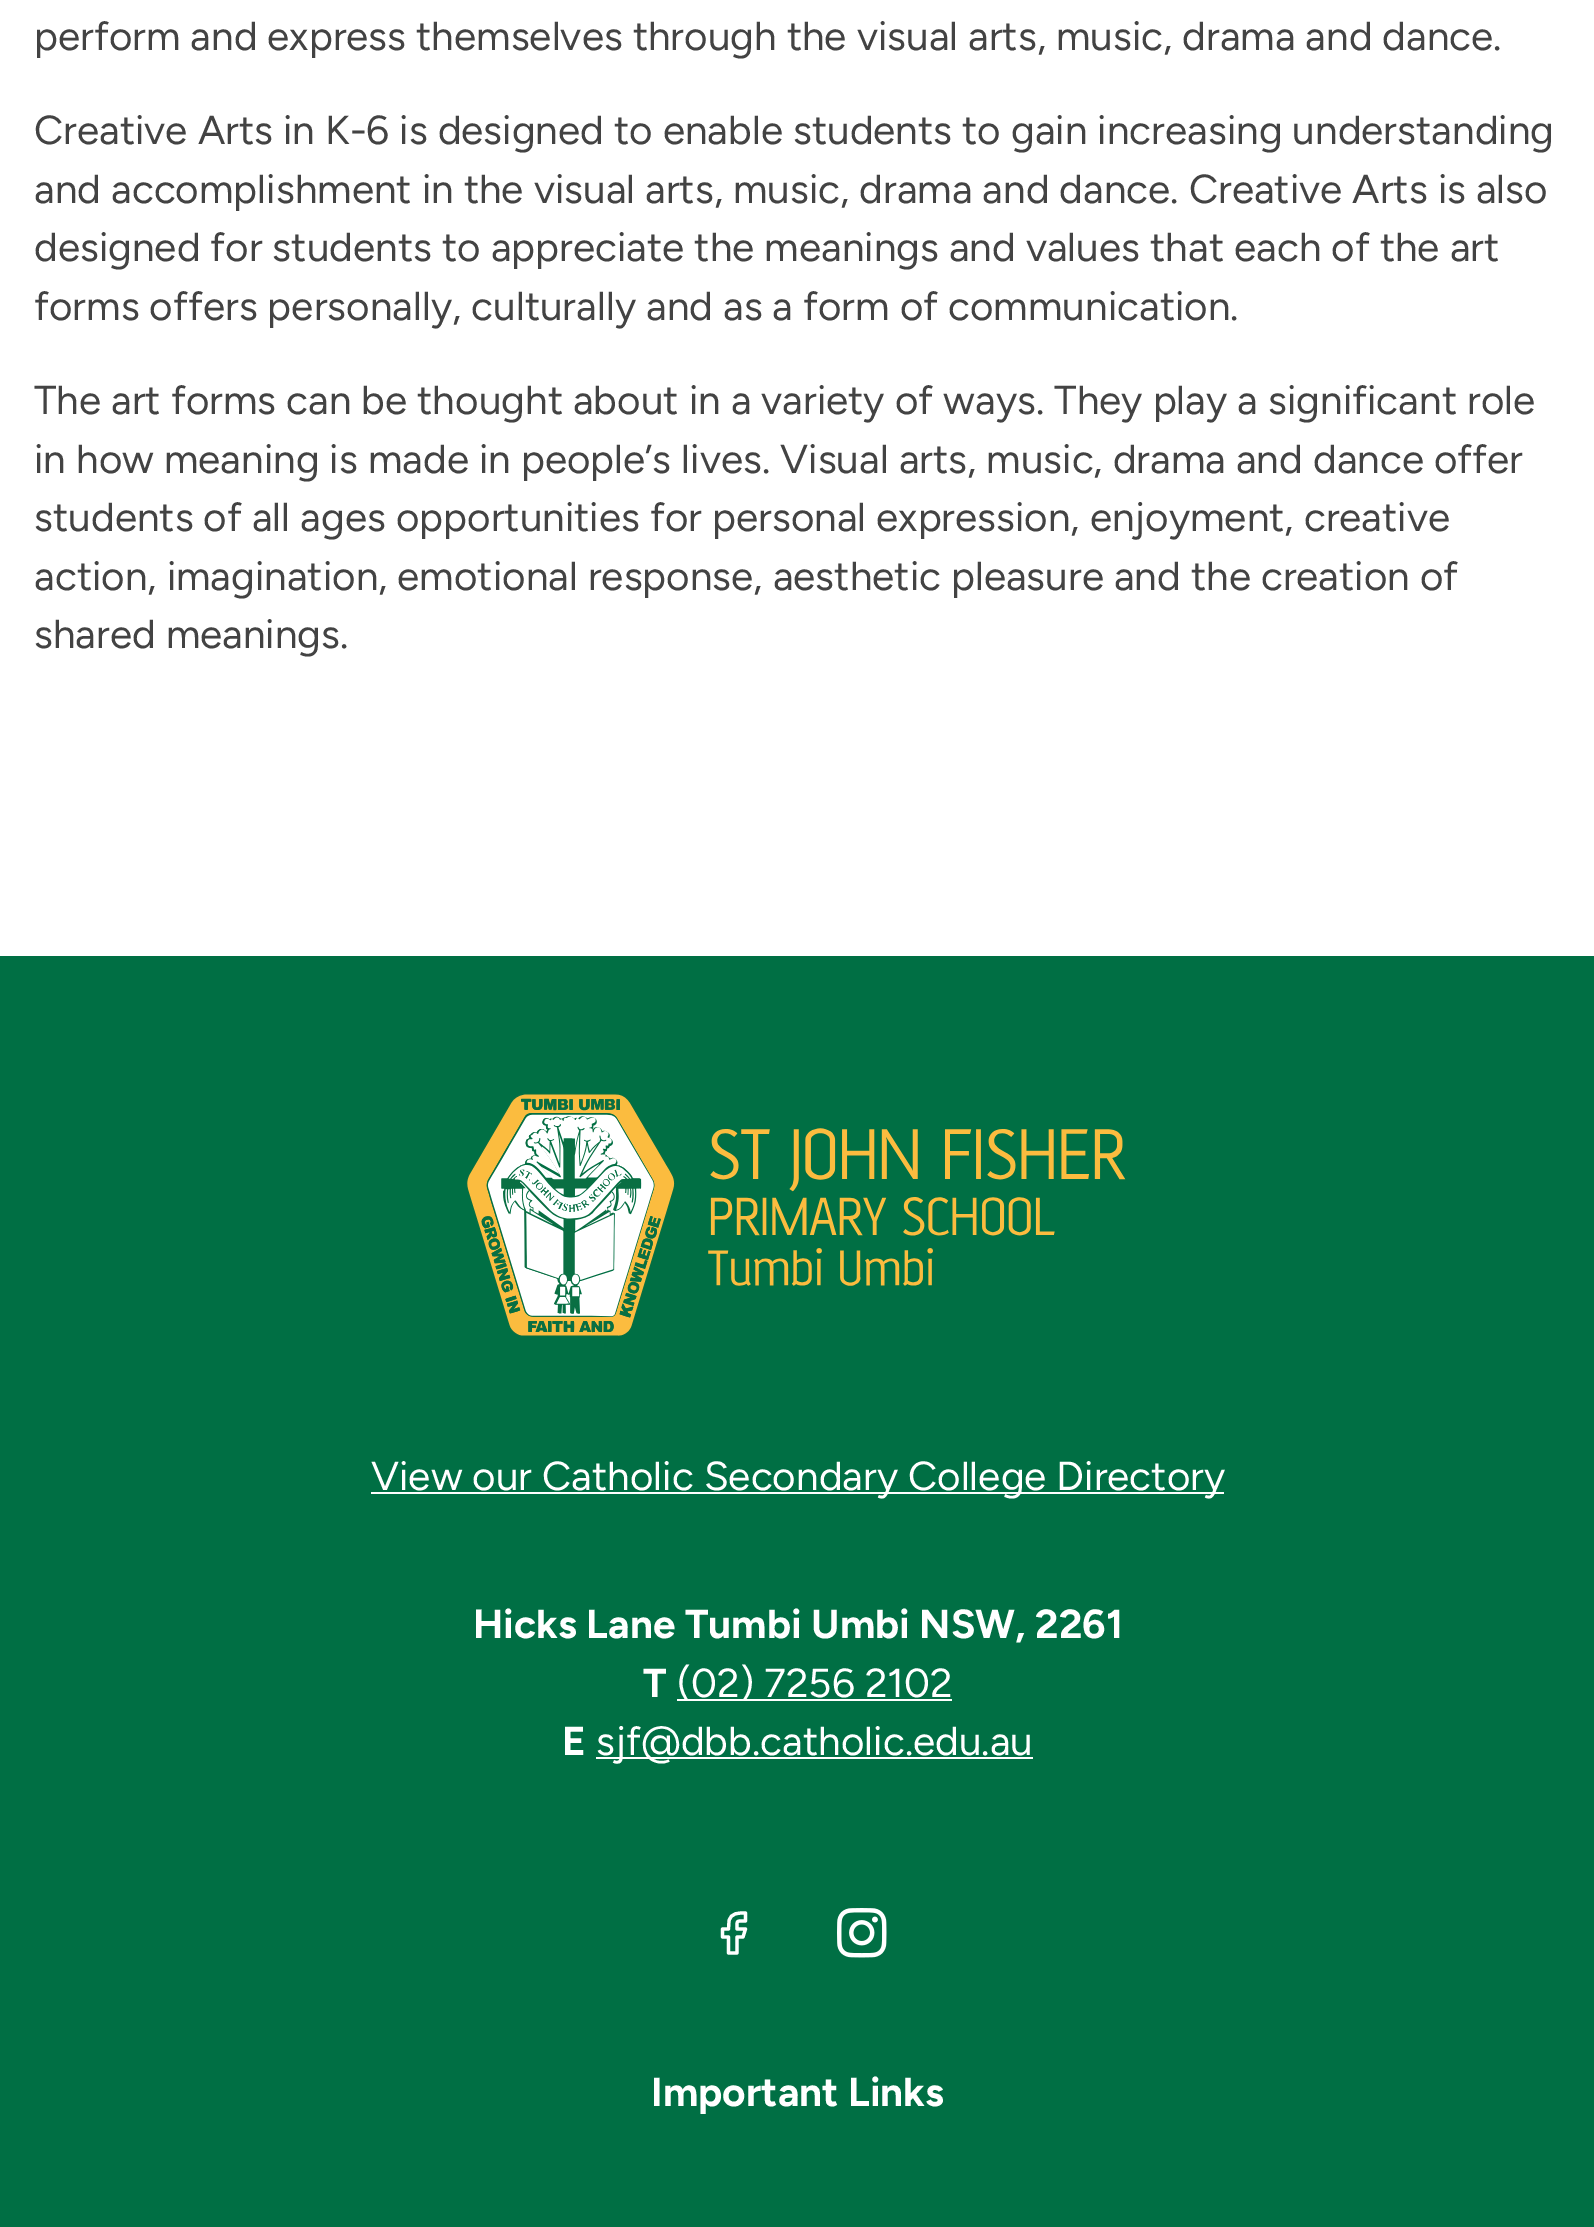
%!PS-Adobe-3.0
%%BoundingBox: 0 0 1594 2227
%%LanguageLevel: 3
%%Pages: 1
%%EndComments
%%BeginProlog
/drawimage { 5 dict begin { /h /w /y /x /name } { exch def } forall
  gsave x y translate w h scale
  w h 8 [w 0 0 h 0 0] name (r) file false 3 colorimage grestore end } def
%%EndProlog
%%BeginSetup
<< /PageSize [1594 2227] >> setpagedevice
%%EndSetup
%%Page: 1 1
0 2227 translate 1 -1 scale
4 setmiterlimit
1 setgray
0 0 1594 2227 rectfill
0 0.435 0.267 setrgbcolor
0 956 1594 1271 rectfill
(images/1.raw) 466 1093 660 244 drawimage
1 setgray
371 1492 853 2 rectfill
677 1699 275 2 rectfill
596 1757 437 2 rectfill
3.2 setlinewidth
1 setlinecap
1 setlinejoin
newpath 745.5 1913 moveto 738.5 1913 731 1912.5 729 1921 curveto 728.5 1929 lineto 722.5 1929 lineto 722.5 1937 lineto 728.5 1937 lineto 728.5 1953 lineto 737 1953 lineto 737 1937 lineto 743 1937 lineto 745.5 1929 lineto 737 1929 lineto 737 1920 736 1921 745.5 1921 curveto closepath stroke
(images/2.raw) 837 1908 50 50 drawimage
/Figtree-Regular [40.5 0 0 -40.5 0 0] selectfont
0.263 setgray
34 50 moveto (perform and express themselves through the visual arts, music, drama and dance.) show
34 144 moveto (Creative Arts in K-6 is designed to enable students to gain increasing understanding) show
34 203 moveto (and accomplishment in the visual arts, music, drama and dance. Creative Arts is also) show
34 261 moveto (designed for students to appreciate the meanings and values that each of the art) show
34 320 moveto (forms offers personally, culturally and as a form of communication.) show
34 414 moveto (The art forms can be thought about in a variety of ways. They play a significant role) show
34 473 moveto (in how meaning is made in people’s lives. Visual arts, music, drama and dance offer) show
34 531 moveto (students of all ages opportunities for personal expression, enjoyment, creative) show
34 590 moveto (action, imagination, emotional response, aesthetic pleasure and the creation of) show
34 648 moveto (shared meanings.) show
1 setgray
371 1490 moveto (View our Catholic Secondary College Directory) show
/Figtree-Bold [40.5 0 0 -40.5 0 0] selectfont
473 1638 moveto (Hicks Lane Tumbi Umbi NSW, 2261) show
643 1697 moveto (T) show
/Figtree-Regular [40.5 0 0 -40.5 0 0] selectfont
677 1697 moveto (\(02\) 7256 2102) show
/Figtree-Bold [40.5 0 0 -40.5 0 0] selectfont
562 1755 moveto (E) show
/Figtree-Regular [40.5 0 0 -40.5 0 0] selectfont
596 1755 moveto (sjf@dbb.catholic.edu.au) show
/Figtree-Bold [40.5 0 0 -40.5 0 0] selectfont
651 2106 moveto (Important Links) show
showpage
%%EOF
